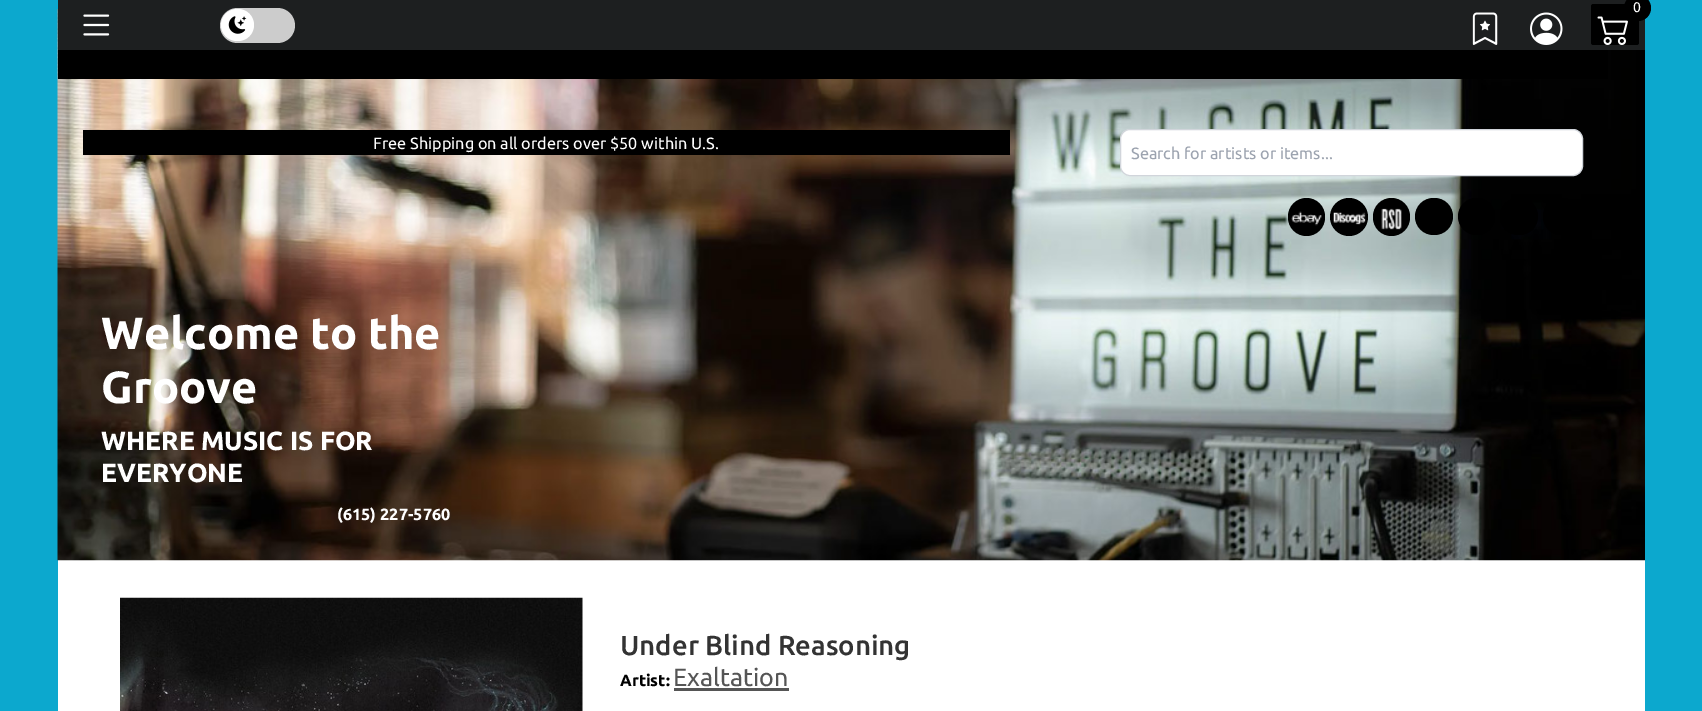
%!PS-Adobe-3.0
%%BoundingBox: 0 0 1702 711
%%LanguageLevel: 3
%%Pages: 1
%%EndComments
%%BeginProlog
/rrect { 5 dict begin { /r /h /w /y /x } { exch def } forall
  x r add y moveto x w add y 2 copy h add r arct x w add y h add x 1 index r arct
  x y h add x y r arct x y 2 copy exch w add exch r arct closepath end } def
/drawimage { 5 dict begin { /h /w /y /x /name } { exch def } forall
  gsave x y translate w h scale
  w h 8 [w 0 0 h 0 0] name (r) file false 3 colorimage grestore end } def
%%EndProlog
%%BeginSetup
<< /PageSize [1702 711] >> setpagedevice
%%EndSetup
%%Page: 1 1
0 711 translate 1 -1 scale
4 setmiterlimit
0.047 0.659 0.808 setrgbcolor
0 0 1702 711 rectfill
1 setgray
58 560 1587 151 rectfill
(images/6.raw) 57 9 1588 552 drawimage
0.114 0.122 0.125 setrgbcolor
58 0 1587 50 rectfill
(images/1.raw) 83 14 27 22 drawimage
0.8 setgray
220 8 75 35 17.5 rrect fill
1 setgray
221 9 33 32 16 rrect fill
(images/2.raw) 228 16 19 18 drawimage
0 setgray
1591 4 48 41 2.5 rrect fill
(images/3.raw) 1597 16 31 29 drawimage
1624 -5 27 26 13 rrect fill
(images/4.raw) 1472 12 26 33 drawimage
(images/5.raw) 1530 12 33 33 drawimage
58 50 1550 29 rectfill
83 130 927 25 rectfill
1 setgray
1120.5 129.5 462 46 9.5 rrect gsave fill grestore
0.82 0.835 0.859 setrgbcolor
stroke
0 setgray
1288 198 37 38 18.5 rrect fill
(images/7.raw) 1291 211 31 15 drawimage
newpath 1349 217 19 0 360 arc closepath fill
(images/8.raw) 1333 212 33 13 drawimage
1373 198 37 38 18.5 rrect fill
(images/9.raw) 1381 208 21 22 drawimage
1415 198 38 37 18.5 rrect fill
newpath 1476.5 216.5 18.5 0 360 arc closepath fill
1500 198 38 37 18.5 rrect fill
newpath 1561.5 216.5 18.5 0 360 arc closepath fill
(images/10.raw) 120 597 463 114 drawimage
0.333 setgray
674 688 115 3 rectfill
/Ubuntu-Regular [14 0 0 -14 0 0] selectfont
1 setgray
1633 12 moveto (0) show
/Ubuntu-Regular [16.25 0 0 -16.25 0 0] selectfont
373 149 moveto (Free Shipping on all orders over $50 within U.S.) show
/Ubuntu-Bold [45 0 0 -45 0 0] selectfont
101 349 moveto (Welcome to the) show
101 403 moveto (Groove) show
/Ubuntu-Bold [26.25 0 0 -26.25 0 0] selectfont
101 450 moveto (WHERE MUSIC IS FOR) show
101 482 moveto (EVERYONE) show
/Ubuntu-Bold [16.25 0 0 -16.25 0 0] selectfont
337 520 moveto (\(615\) 227-5760) show
/Ubuntu-Regular [16.25 0 0 -16.25 0 0] selectfont
0.612 0.639 0.686 setrgbcolor
1131 159 moveto (Search for artists or items...) show
/Ubuntu-Medium [27.5 0 0 -27.5 0 0] selectfont
0.2 setgray
620 655 moveto (Under Blind Reasoning) show
/Ubuntu-Bold [16.25 0 0 -16.25 0 0] selectfont
0 setgray
620 686 moveto (Artist:) show
/Ubuntu-Regular [25 0 0 -25 0 0] selectfont
0.333 setgray
673 686 moveto (Exaltation) show
showpage
%%EOF
